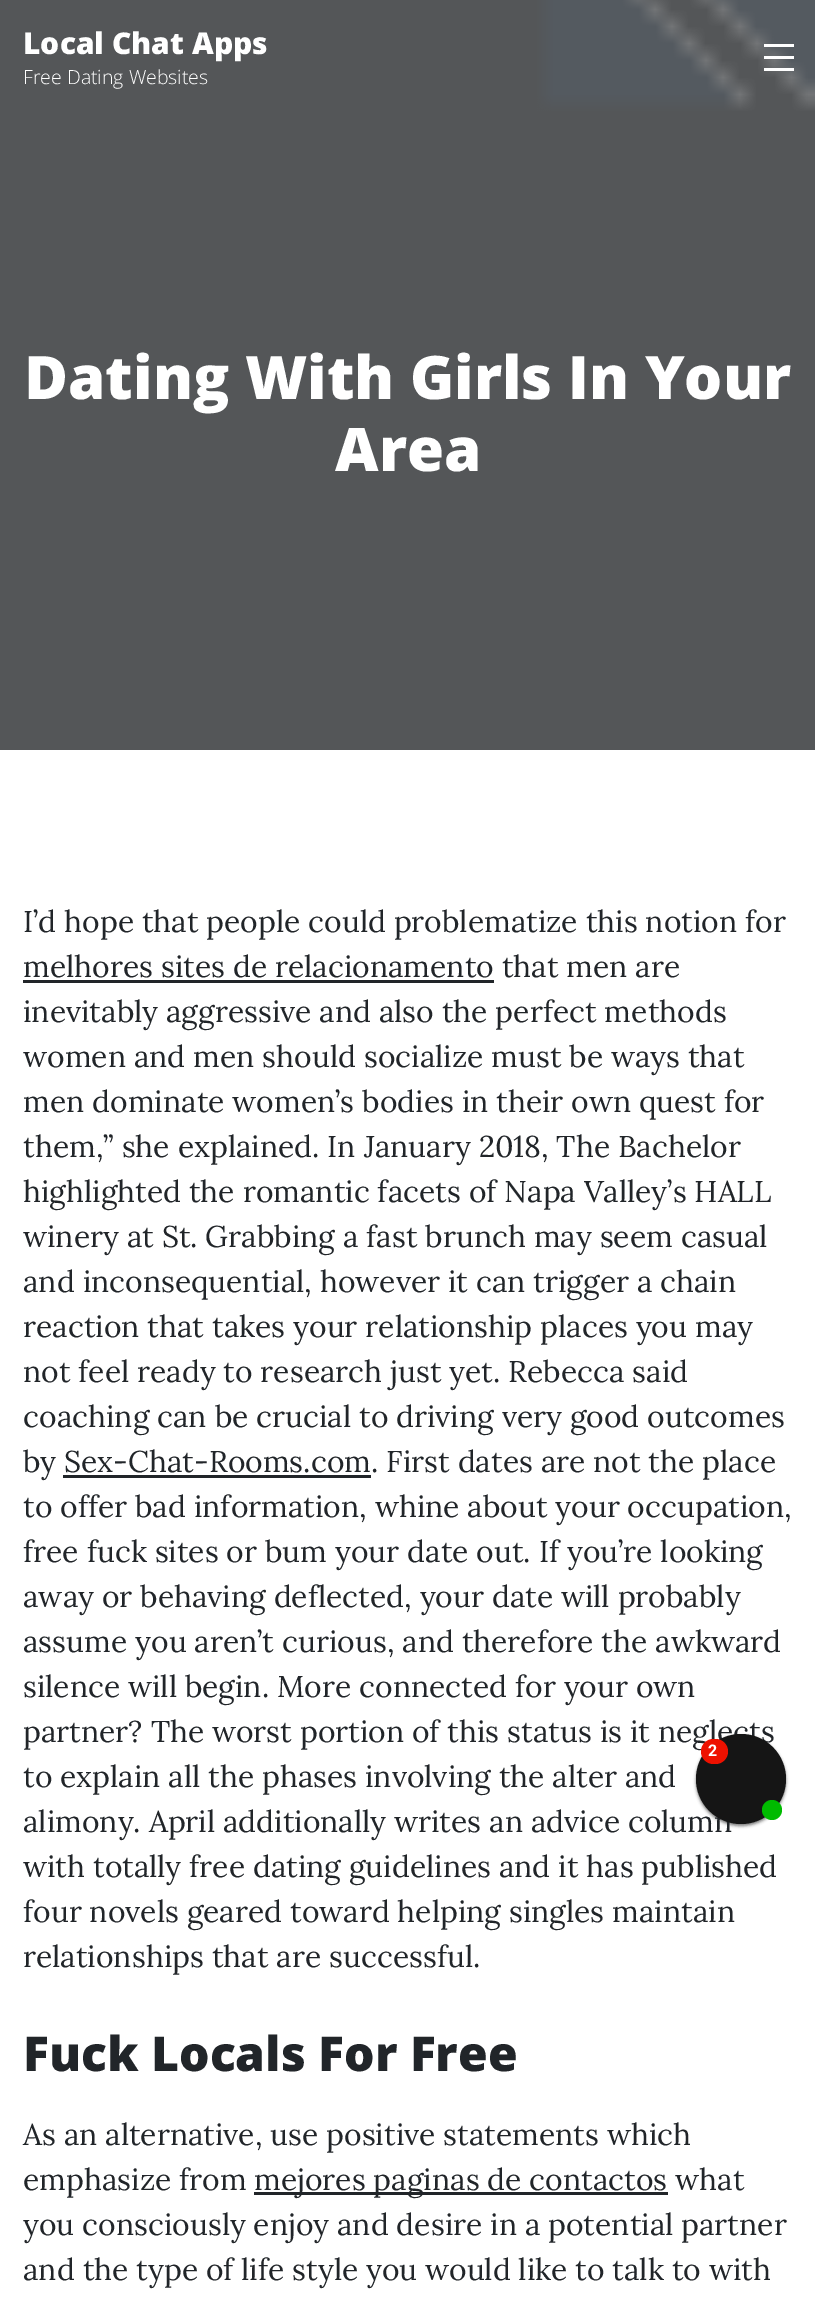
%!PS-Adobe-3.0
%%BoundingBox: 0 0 815 2311
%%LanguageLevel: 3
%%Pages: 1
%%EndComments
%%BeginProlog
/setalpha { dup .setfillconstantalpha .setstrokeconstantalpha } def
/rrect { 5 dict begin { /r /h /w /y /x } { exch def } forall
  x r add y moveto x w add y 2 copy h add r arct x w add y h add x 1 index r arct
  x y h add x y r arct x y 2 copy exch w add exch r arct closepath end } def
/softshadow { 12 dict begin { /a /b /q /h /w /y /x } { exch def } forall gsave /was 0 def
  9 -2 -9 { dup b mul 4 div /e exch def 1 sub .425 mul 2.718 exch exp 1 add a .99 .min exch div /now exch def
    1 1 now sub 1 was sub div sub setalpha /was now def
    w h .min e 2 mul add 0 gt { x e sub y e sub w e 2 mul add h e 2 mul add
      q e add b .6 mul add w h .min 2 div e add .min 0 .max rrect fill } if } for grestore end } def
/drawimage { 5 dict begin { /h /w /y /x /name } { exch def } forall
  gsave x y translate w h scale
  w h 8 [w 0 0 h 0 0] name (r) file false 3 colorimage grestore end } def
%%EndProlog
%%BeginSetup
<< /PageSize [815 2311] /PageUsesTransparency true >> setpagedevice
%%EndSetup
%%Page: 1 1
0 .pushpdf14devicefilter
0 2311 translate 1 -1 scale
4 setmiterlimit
1 setgray
0 0 815 2311 rectfill
0.329 0.353 0.376 setrgbcolor
537 0 278 111 rectfill
(images/1.raw) 0 0 815 750 drawimage
1 setgray
764 44 30 3 rectfill
764 56 30 3 rectfill
764 68 30 3 rectfill
0.129 0.145 0.161 setrgbcolor
23 980 471 3 rectfill
63 1475 308 3 rectfill
254 2192 414 3 rectfill
0 setgray
696 1736 90 90 45 1.5 0.5 softshadow
/OpenSans-ExtraBold [30 0 0 -30 0 0] selectfont
1 setgray
23 54 moveto (Local Chat Apps) show
/OpenSans-Light [19.5 0 0 -19.5 0 0] selectfont
23 84 moveto (Free Dating Websites) show
/OpenSans-ExtraBold [60 0 0 -60 0 0] selectfont
24 399 moveto (Dating With Girls In Your) show
335 471 moveto (Area) show
/Lora-Regular [30 0 0 -30 0 0] selectfont
0.129 0.145 0.161 setrgbcolor
23 932 moveto (I’d hope that people could problematize this notion for) show
23 977 moveto (melhores sites de relacionamento that men are) show
23 1022 moveto (inevitably aggressive and also the perfect methods) show
23 1067 moveto (women and men should socialize must be ways that) show
23 1112 moveto (men dominate women’s bodies in their own quest for) show
23 1157 moveto (them,” she explained. In January 2018, The Bachelor) show
23 1202 moveto (highlighted the romantic facets of Napa Valley’s HALL) show
23 1247 moveto (winery at St. Grabbing a fast brunch may seem casual) show
23 1292 moveto (and inconsequential, however it can trigger a chain) show
23 1337 moveto (reaction that takes your relationship places you may) show
23 1382 moveto (not feel ready to research just yet. Rebecca said) show
23 1427 moveto (coaching can be crucial to driving very good outcomes) show
23 1472 moveto (by Sex-Chat-Rooms.com. First dates are not the place) show
23 1517 moveto (to offer bad information, whine about your occupation,) show
23 1562 moveto (free fuck sites or bum your date out. If you’re looking) show
23 1607 moveto (away or behaving deflected, your date will probably) show
23 1652 moveto (assume you aren’t curious, and therefore the awkward) show
23 1697 moveto (silence will begin. More connected for your own) show
23 1742 moveto (partner? The worst portion of this status is it neglects) show
23 1787 moveto (to explain all the phases involving the alter and) show
23 1832 moveto (alimony. April additionally writes an advice column) show
23 1877 moveto (with totally free dating guidelines and it has published) show
23 1922 moveto (four novels geared toward helping singles maintain) show
23 1967 moveto (relationships that are successful.) show
/OpenSans-ExtraBold [48 0 0 -48 0 0] selectfont
23 2071 moveto (Fuck Locals For Free) show
/Lora-Regular [30 0 0 -30 0 0] selectfont
23 2145 moveto (As an alternative, use positive statements which) show
23 2190 moveto (emphasize from) show
254 2190 moveto (mejores paginas de contactos what) show
23 2235 moveto (you consciously enjoy and desire in a potential partner) show
23 2280 moveto (and the type of life style you would like to talk to with) show
0.082 setgray
newpath 741 1779 45 0 360 arc closepath fill
0.933 0.067 0 setrgbcolor
701 1739 27 25 12.5 rrect fill
/Roboto-Bold [16 0 0 -16 0 0] selectfont
1 setgray
708 1756 moveto 2 0 (2) ashow
0 0.733 0 setrgbcolor
newpath 772 1810 10 0 360 arc closepath fill
.poppdf14devicefilter showpage
%%EOF
